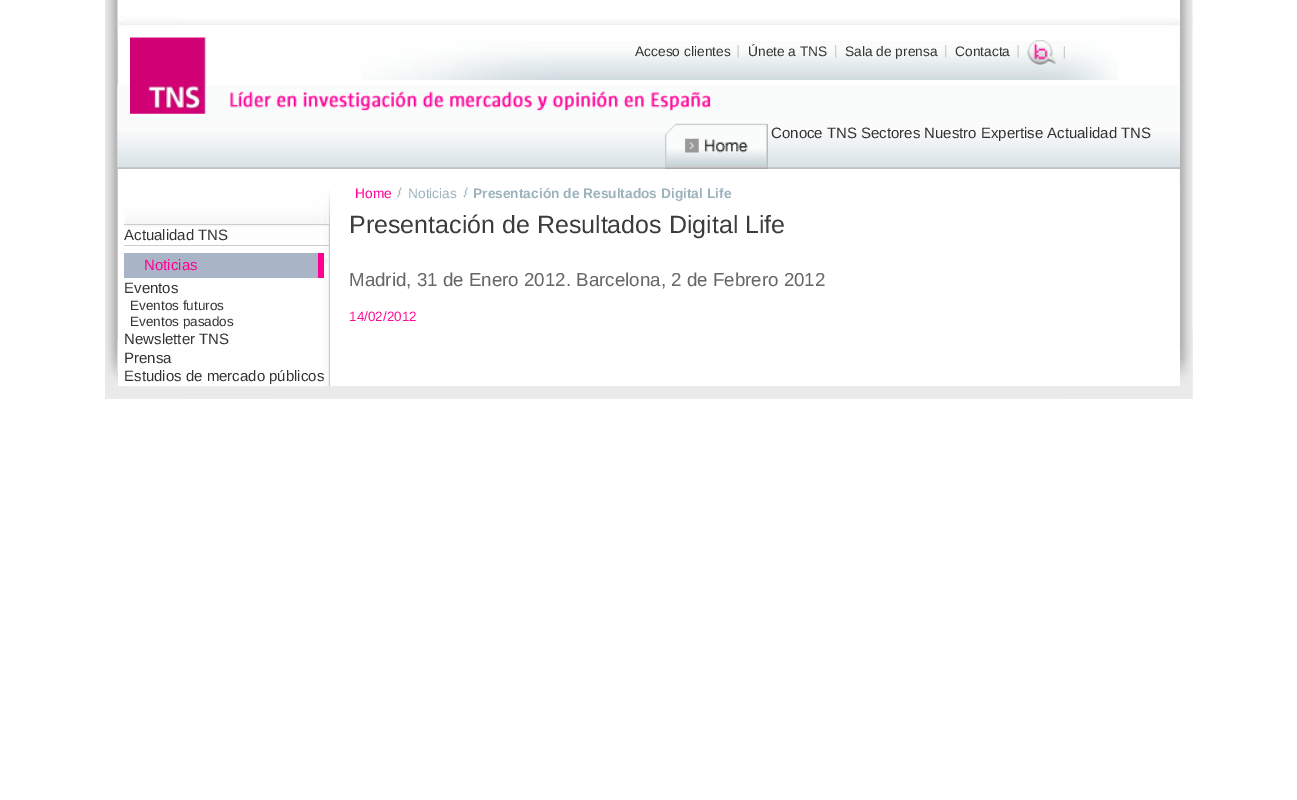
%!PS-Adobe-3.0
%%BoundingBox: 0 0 1297 800
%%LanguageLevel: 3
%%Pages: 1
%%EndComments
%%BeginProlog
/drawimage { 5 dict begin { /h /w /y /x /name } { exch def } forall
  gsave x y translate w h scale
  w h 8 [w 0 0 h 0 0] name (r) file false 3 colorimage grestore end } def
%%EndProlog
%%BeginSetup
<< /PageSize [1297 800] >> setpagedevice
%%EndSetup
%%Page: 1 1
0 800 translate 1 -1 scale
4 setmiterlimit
1 setgray
0 0 1297 800 rectfill
(images/1.raw) 180 19 1013 6 drawimage
(images/2.raw) 1117 0 75 399 drawimage
(images/3.raw) 105 373 1088 26 drawimage
(images/4.raw) 105 50 75 349 drawimage
(images/5.raw) 117 0 63 50 drawimage
(images/6.raw) 1117 0 63 50 drawimage
(images/7.raw) 1060 330 133 69 drawimage
(images/8.raw) 105 341 172 58 drawimage
(images/9.raw) 105 0 13 399 drawimage
(images/10.raw) 1180 0 13 375 drawimage
(images/11.raw) 117 85 1063 84 drawimage
(images/12.raw) 130 37 77 77 drawimage
(images/13.raw) 361 41 758 39 drawimage
(images/14.raw) 737 45 2 13 drawimage
(images/15.raw) 835 45 2 13 drawimage
(images/15.raw) 945 45 2 13 drawimage
(images/14.raw) 1017 45 2 13 drawimage
(images/16.raw) 1063 46 2 13 drawimage
(images/17.raw) 1027 40 29 25 drawimage
(images/18.raw) 229 91 482 20 drawimage
0.667 setgray
665 124 103 45 rectfill
(images/19.raw) 665 123 103 45 drawimage
1 setgray
118 185 1062 201 rectfill
(images/20.raw) 124 190 206 197 drawimage
0.8 setgray
124 224 206 1 rectfill
124 245 206 1 rectfill
0.663 0.71 0.776 setrgbcolor
124 253 194 25 rectfill
1 0 0.576 setrgbcolor
318 253 6 25 rectfill
(images/21.raw) 397 187 5 11 drawimage
(images/22.raw) 463 187 5 11 drawimage
/LiberationSans-Regular [13.75 0 0 -13.75 0 0] selectfont
0.2 setgray
635 56 moveto (Acceso clientes) show
748 56 moveto (Únete a TNS) show
845 56 moveto (Sala de prensa) show
955 56 moveto (Contacta) show
/LiberationSans-Regular [15 0 0 -15 0 0] selectfont
771 138 moveto (Conoce TNS) show
861 138 moveto (Sectores) show
924 138 moveto (Nuestro Expertise) show
1047 138 moveto (Actualidad TNS) show
124 240 moveto (Actualidad TNS) show
1 0 0.576 setrgbcolor
144 270 moveto (Noticias) show
0.2 setgray
124 293 moveto (Eventos) show
/LiberationSans-Regular [13.5 0 0 -13.5 0 0] selectfont
130 310 moveto (Eventos futuros) show
130 326 moveto (Eventos pasados) show
/LiberationSans-Regular [15 0 0 -15 0 0] selectfont
124 344 moveto (Newsletter TNS) show
124 363 moveto (Prensa) show
124 381 moveto (Estudios de mercado públicos) show
/LiberationSans-Regular [13.75 0 0 -13.75 0 0] selectfont
1 0 0.576 setrgbcolor
355 198 moveto (Home) show
0.612 0.702 0.737 setrgbcolor
408 198 moveto (Noticias) show
/LiberationSans-Bold [13.75 0 0 -13.75 0 0] selectfont
473 198 moveto (Presentación de Resultados Digital Life) show
/LiberationSans-Regular [25 0 0 -25 0 0] selectfont
0.235 setgray
349 233 moveto (Presentación de Resultados Digital Life) show
/LiberationSans-Regular [18.75 0 0 -18.75 0 0] selectfont
0.4 setgray
349 286 moveto (Madrid, 31 de Enero 2012. Barcelona, 2 de Febrero 2012) show
/LiberationSans-Regular [13.5 0 0 -13.5 0 0] selectfont
1 0.043 0.592 setrgbcolor
349 321 moveto (14/02/2012) show
showpage
%%EOF
